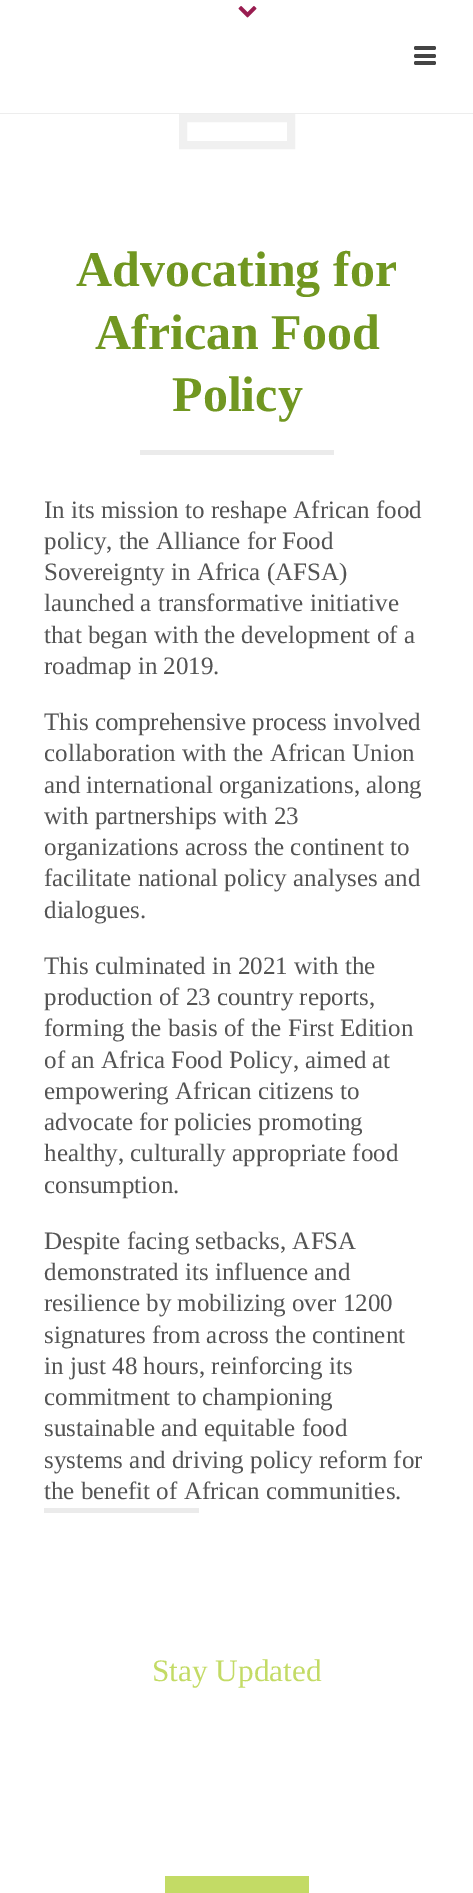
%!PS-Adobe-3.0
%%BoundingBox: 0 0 473 1893
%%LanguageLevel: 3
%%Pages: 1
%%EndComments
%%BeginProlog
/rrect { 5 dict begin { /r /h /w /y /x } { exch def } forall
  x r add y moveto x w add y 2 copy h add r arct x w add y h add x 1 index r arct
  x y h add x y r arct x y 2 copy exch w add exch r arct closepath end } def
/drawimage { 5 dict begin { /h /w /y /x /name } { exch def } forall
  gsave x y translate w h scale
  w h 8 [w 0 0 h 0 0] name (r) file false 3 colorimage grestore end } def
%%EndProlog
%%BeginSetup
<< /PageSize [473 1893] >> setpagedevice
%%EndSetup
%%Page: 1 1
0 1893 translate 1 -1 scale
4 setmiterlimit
1 setgray
0 0 473 1893 rectfill
0.929 setgray
0 113 473 1 rectfill
(images/1.raw) 238 6 19 12 drawimage
0.267 setgray
414 46 22 4 2 rrect fill
414 54 22 4 2 rrect fill
414 61 22 4 2 rrect fill
0.941 setgray
8 setlinewidth
183 118 108 27 rectstroke
0.922 setgray
140 450 194 5 rectfill
44 1508 155 5 rectfill
0.765 0.859 0.396 setrgbcolor
165 1876 144 17 rectfill
/LiberationSerif-Bold [50 0 0 -50 0 0] selectfont
0.443 0.592 0.129 setrgbcolor
76 286 moveto (Advocating for) show
95 349 moveto (African Food) show
172 411 moveto (Policy) show
/LiberationSerif-Regular [25 0 0 -25 0 0] selectfont
0.329 setgray
44 518 moveto (In its mission to reshape African food) show
44 549 moveto (policy, the Alliance for Food) show
44 580 moveto (Sovereignty in Africa \(AFSA\)) show
44 611 moveto (launched a transformative initiative) show
44 643 moveto (that began with the development of a) show
44 674 moveto (roadmap in 2019.) show
44 730 moveto (This comprehensive process involved) show
44 761 moveto (collaboration with the African Union) show
44 793 moveto (and international organizations, along) show
44 824 moveto (with partnerships with 23) show
44 855 moveto (organizations across the continent to) show
44 886 moveto (facilitate national policy analyses and) show
44 918 moveto (dialogues.) show
44 974 moveto (This culminated in 2021 with the) show
44 1005 moveto (production of 23 country reports,) show
44 1036 moveto (forming the basis of the First Edition) show
44 1068 moveto (of an Africa Food Policy, aimed at) show
44 1099 moveto (empowering African citizens to) show
44 1130 moveto (advocate for policies promoting) show
44 1161 moveto (healthy, culturally appropriate food) show
44 1193 moveto (consumption.) show
44 1249 moveto (Despite facing setbacks, AFSA) show
44 1280 moveto (demonstrated its influence and) show
44 1311 moveto (resilience by mobilizing over 1200) show
44 1343 moveto (signatures from across the continent) show
44 1374 moveto (in just 48 hours, reinforcing its) show
44 1405 moveto (commitment to championing) show
44 1436 moveto (sustainable and equitable food) show
44 1468 moveto (systems and driving policy reform for) show
44 1499 moveto (the benefit of African communities.) show
/LiberationSerif-Regular [31.25 0 0 -31.25 0 0] selectfont
0.765 0.859 0.396 setrgbcolor
152 1681 moveto (Stay Updated) show
showpage
%%EOF
